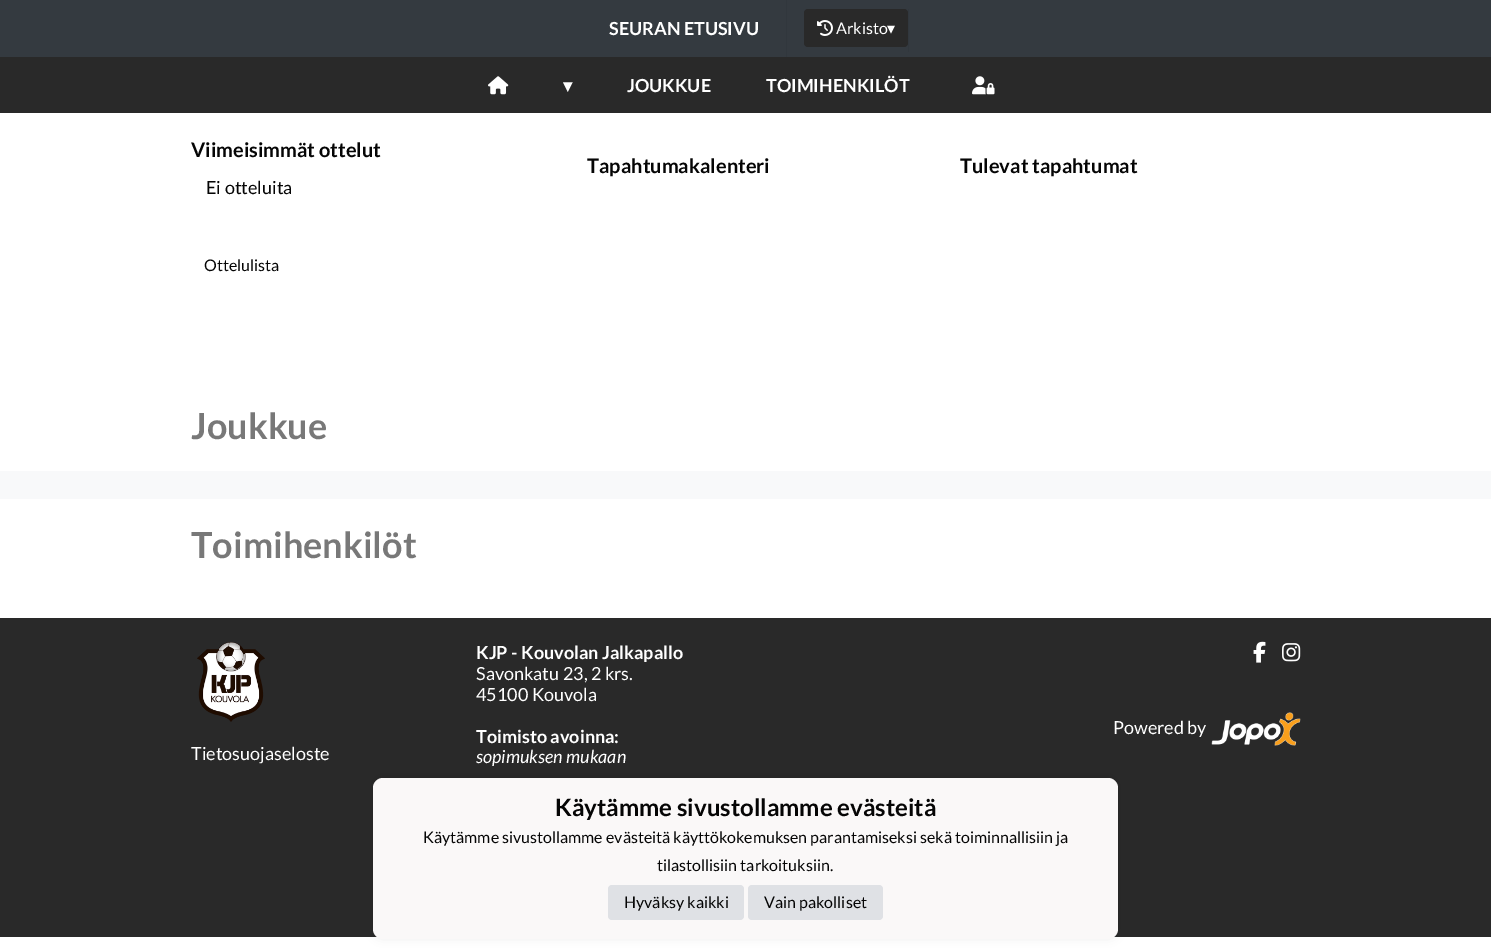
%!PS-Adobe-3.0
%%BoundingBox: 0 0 1491 948
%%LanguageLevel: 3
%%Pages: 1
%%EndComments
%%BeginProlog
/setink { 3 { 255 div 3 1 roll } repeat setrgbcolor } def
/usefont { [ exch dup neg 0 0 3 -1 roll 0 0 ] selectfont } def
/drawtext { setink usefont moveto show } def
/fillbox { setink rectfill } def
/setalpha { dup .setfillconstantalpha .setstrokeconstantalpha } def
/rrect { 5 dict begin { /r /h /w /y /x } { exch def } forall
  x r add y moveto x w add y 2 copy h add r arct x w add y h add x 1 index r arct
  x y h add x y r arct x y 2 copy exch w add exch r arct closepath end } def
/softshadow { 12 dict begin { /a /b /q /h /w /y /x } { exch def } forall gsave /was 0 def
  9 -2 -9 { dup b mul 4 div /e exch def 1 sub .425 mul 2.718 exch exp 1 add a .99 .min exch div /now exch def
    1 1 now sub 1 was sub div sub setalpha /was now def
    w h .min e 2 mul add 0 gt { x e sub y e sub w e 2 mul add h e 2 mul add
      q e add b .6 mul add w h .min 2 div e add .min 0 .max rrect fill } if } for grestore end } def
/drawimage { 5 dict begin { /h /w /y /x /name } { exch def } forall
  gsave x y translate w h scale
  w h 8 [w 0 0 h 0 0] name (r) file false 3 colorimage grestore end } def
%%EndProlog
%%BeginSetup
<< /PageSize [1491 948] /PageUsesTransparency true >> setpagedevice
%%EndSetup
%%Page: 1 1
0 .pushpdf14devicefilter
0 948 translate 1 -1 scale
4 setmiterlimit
0 0 1491 948 255 255 255 fillbox
0 0 1491 57 52 58 64 fillbox
786 0 1 57 49 55 61 fillbox
(SEURAN ETUSIVU) 609 35 /Lato-Bold 18 255 255 255 drawtext
908 9 1 43 49 55 61 fillbox
41 41 41 setink
804 9 104 38 4 rrect fill
(assets/img1.rgb) 817 20 16 16 drawimage
(Arkisto) 836 34 /Lato-Regular 16 255 255 255 drawtext
(▾) 887 34 /DejaVuSans-Regular 16 255 255 255 drawtext
0 57 1491 56 41 41 41 fillbox
(assets/img2.rgb) 488 76 21 19 drawimage
(▾) 563 92 /DejaVuSans-Bold 18 255 255 255 drawtext
(JOUKKUE) 627 92 /Lato-Bold 18 255 255 255 drawtext
(TOIMIHENKILÖT) 766 92 /Lato-Bold 18 255 255 255 drawtext
(assets/img3.rgb) 972 76 23 19 drawimage
(Viimeisimmät ottelut) 191 157 /Lato-Bold 20 5 5 5 drawtext
(Ei otteluita) 206 194 /Lato-Regular 18 5 5 5 drawtext
(Ottelulista) 204 271 /Lato-Regular 16 5 5 5 drawtext
(Tapahtumakalenteri) 587 173 /Lato-Bold 20 5 5 5 drawtext
(Tulevat tapahtumat) 960 173 /Lato-Bold 20 5 5 5 drawtext
(Joukkue) 191 439 /Lato-Bold 36 120 120 120 drawtext
0 471 1491 28 248 249 250 fillbox
(Toimihenkilöt) 191 558 /Lato-Bold 36 120 120 120 drawtext
0 618 1491 319 41 41 41 fillbox
(KJP - Kouvolan Jalkapallo) 476 659 /Lato-Bold 18 255 255 255 drawtext
(Savonkatu 23, 2 krs.) 476 680 /Lato-Regular 18 255 255 255 drawtext
(45100 Kouvola) 476 701 /Lato-Regular 18 255 255 255 drawtext
(Toimisto avoinna:) 476 743 /Lato-Bold 18 255 255 255 drawtext
(sopimuksen mukaan) 476 763 /Lato-Italic 18 255 255 255 drawtext
(assets/img4.rgb) 1253 641 13 22 drawimage
(assets/img5.rgb) 1282 643 19 19 drawimage
(Powered by) 1113 734 /Lato-Regular 18 255 255 255 drawtext
(assets/img6.rgb) 1211 712 90 34 drawimage
(assets/img7.rgb) 197 642 68 80 drawimage
(Tietosuojaseloste) 191 760 /Lato-Regular 18 255 255 255 drawtext
0 0 0 setink
373 776 745 161 10 5 0.1 softshadow
250 248 248 setink
373 778 745 161 10 rrect fill
(Käytämme sivustollamme evästeitä) 555 816 /Lato-Bold 24 5 5 5 drawtext
(Käytämme sivustollamme evästeitä käyttökokemuksen parantamiseksi sekä toiminnallisiin ja) 423 843 /Lato-Regular 16 5 5 5 drawtext
(tilastollisiin tarkoituksiin.) 657 871 /Lato-Regular 16 5 5 5 drawtext
223 225 229 setink
608 885 136 35 4 rrect fill
(Hyväksy kaikki) 624 908 /Lato-Regular 16 5 5 5 drawtext
223 225 229 setink
748 885 135 35 4 rrect fill
(Vain pakolliset) 764 908 /Lato-Regular 16 5 5 5 drawtext
.poppdf14devicefilter showpage
%%EOF
